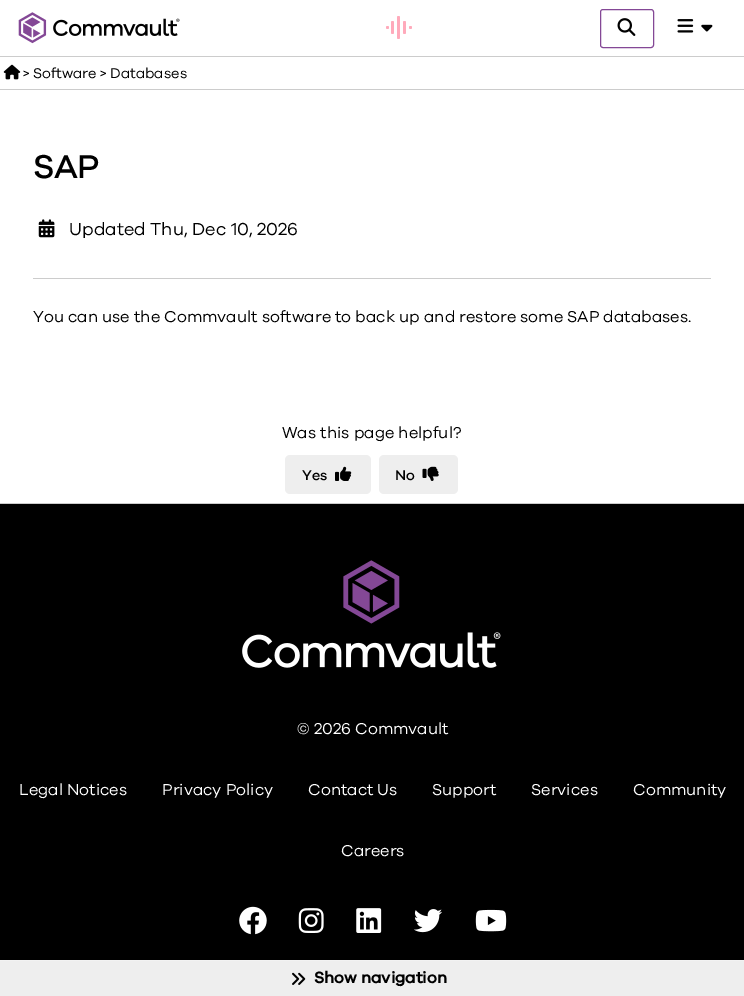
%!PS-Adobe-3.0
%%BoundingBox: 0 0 744 996
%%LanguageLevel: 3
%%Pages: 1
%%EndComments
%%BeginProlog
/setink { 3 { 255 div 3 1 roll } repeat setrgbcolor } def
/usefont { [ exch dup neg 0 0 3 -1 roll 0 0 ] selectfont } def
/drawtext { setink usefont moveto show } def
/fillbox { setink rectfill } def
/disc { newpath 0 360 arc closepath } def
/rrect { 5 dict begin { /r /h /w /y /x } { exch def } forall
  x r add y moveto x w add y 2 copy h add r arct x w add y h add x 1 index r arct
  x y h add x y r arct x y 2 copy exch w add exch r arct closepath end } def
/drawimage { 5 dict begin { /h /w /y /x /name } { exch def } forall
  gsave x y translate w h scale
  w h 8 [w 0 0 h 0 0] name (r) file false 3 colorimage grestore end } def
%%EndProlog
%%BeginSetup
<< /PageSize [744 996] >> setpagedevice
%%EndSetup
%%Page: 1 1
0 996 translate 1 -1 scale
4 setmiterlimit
0 0 744 996 255 255 255 fillbox
0 56 744 1 204 204 204 fillbox
(assets/img1.rgb) 18 12 162 32 drawimage
255 170 187 setink
387.5 27.5 1.5 disc fill
391 21 3 13 1.5 rrect fill
397 16 3 23 1.5 rrect fill
403 21 3 13 1.5 rrect fill
410.5 27.5 1.5 disc fill
132 72 150 setink
600.5 9.5 53 38 2.5 rrect stroke
(assets/img2.rgb) 617 18 19 18 drawimage
(assets/img3.rgb) 677 19 17 14 drawimage
(assets/img4.rgb) 701 24 12 8 drawimage
0 89 744 1 204 204 204 fillbox
(assets/img5.rgb) 3 64 18 16 drawimage
(>) 23 78 /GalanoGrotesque-Regular 14.5 0 0 0 drawtext
(Software) 33 78 /GalanoGrotesque-Regular 14.5 0 0 0 drawtext
(>) 100 78 /GalanoGrotesque-Regular 14.5 0 0 0 drawtext
(Databases) 110 78 /GalanoGrotesque-Regular 14.5 0 0 0 drawtext
/GalanoGrotesque-Medium 34 usefont
33 178 moveto -0.5 0 (SAP) ashow
(assets/img6.rgb) 38 219 17 19 drawimage
(Updated Thu, Dec 10, 2026) 69 235 /GalanoGrotesque-Regular 17.9 0 0 0 drawtext
33 278 678 1 204 204 204 fillbox
(You can use the Commvault software to back up and restore some SAP databases.) 33 322 /GalanoGrotesque-Regular 16.25 0 0 0 drawtext
(Was this page helpful?) 282 438 /GalanoGrotesque-Regular 16.25 0 0 0 drawtext
238 238 238 setink
285 455 86 39 5 rrect fill
(Yes) 302 480 /GalanoGrotesque-Medium 14.5 0 0 0 drawtext
(assets/img7.rgb) 335 466 17 15 drawimage
238 238 238 setink
379 455 79 39 5 rrect fill
(No) 395 480 /GalanoGrotesque-Medium 14.5 0 0 0 drawtext
(assets/img8.rgb) 422 466 17 15 drawimage
0 960 744 1 242 242 242 fillbox
0 961 744 35 238 238 238 fillbox
(assets/img9.rgb) 292 972 14 13 drawimage
(Show navigation) 314 983 /GalanoGrotesque-Bold 16.25 0 0 0 drawtext
0 504 744 456 0 0 0 fillbox
0 503 744 1 204 204 204 fillbox
(assets/img10.rgb) 242 560 259 108 drawimage
(© 2026 Commvault) 297 734 /GalanoGrotesque-Regular 16.25 255 255 255 drawtext
(Legal Notices) 19 795 /GalanoGrotesque-Regular 16.25 255 255 255 drawtext
(Privacy Policy) 162 795 /GalanoGrotesque-Regular 16.25 255 255 255 drawtext
(Contact Us) 308 795 /GalanoGrotesque-Regular 16.25 255 255 255 drawtext
(Support) 432 795 /GalanoGrotesque-Regular 16.25 255 255 255 drawtext
(Services) 531 795 /GalanoGrotesque-Regular 16.25 255 255 255 drawtext
(Community) 633 795 /GalanoGrotesque-Regular 16.25 255 255 255 drawtext
(Careers) 341 856 /GalanoGrotesque-Regular 16.25 255 255 255 drawtext
(assets/img11.rgb) 239 906 28 29 drawimage
(assets/img12.rgb) 298 908 26 25 drawimage
(assets/img13.rgb) 356 908 26 25 drawimage
(assets/img14.rgb) 414 909 28 24 drawimage
(assets/img15.rgb) 475 909 32 23 drawimage
showpage
%%EOF
